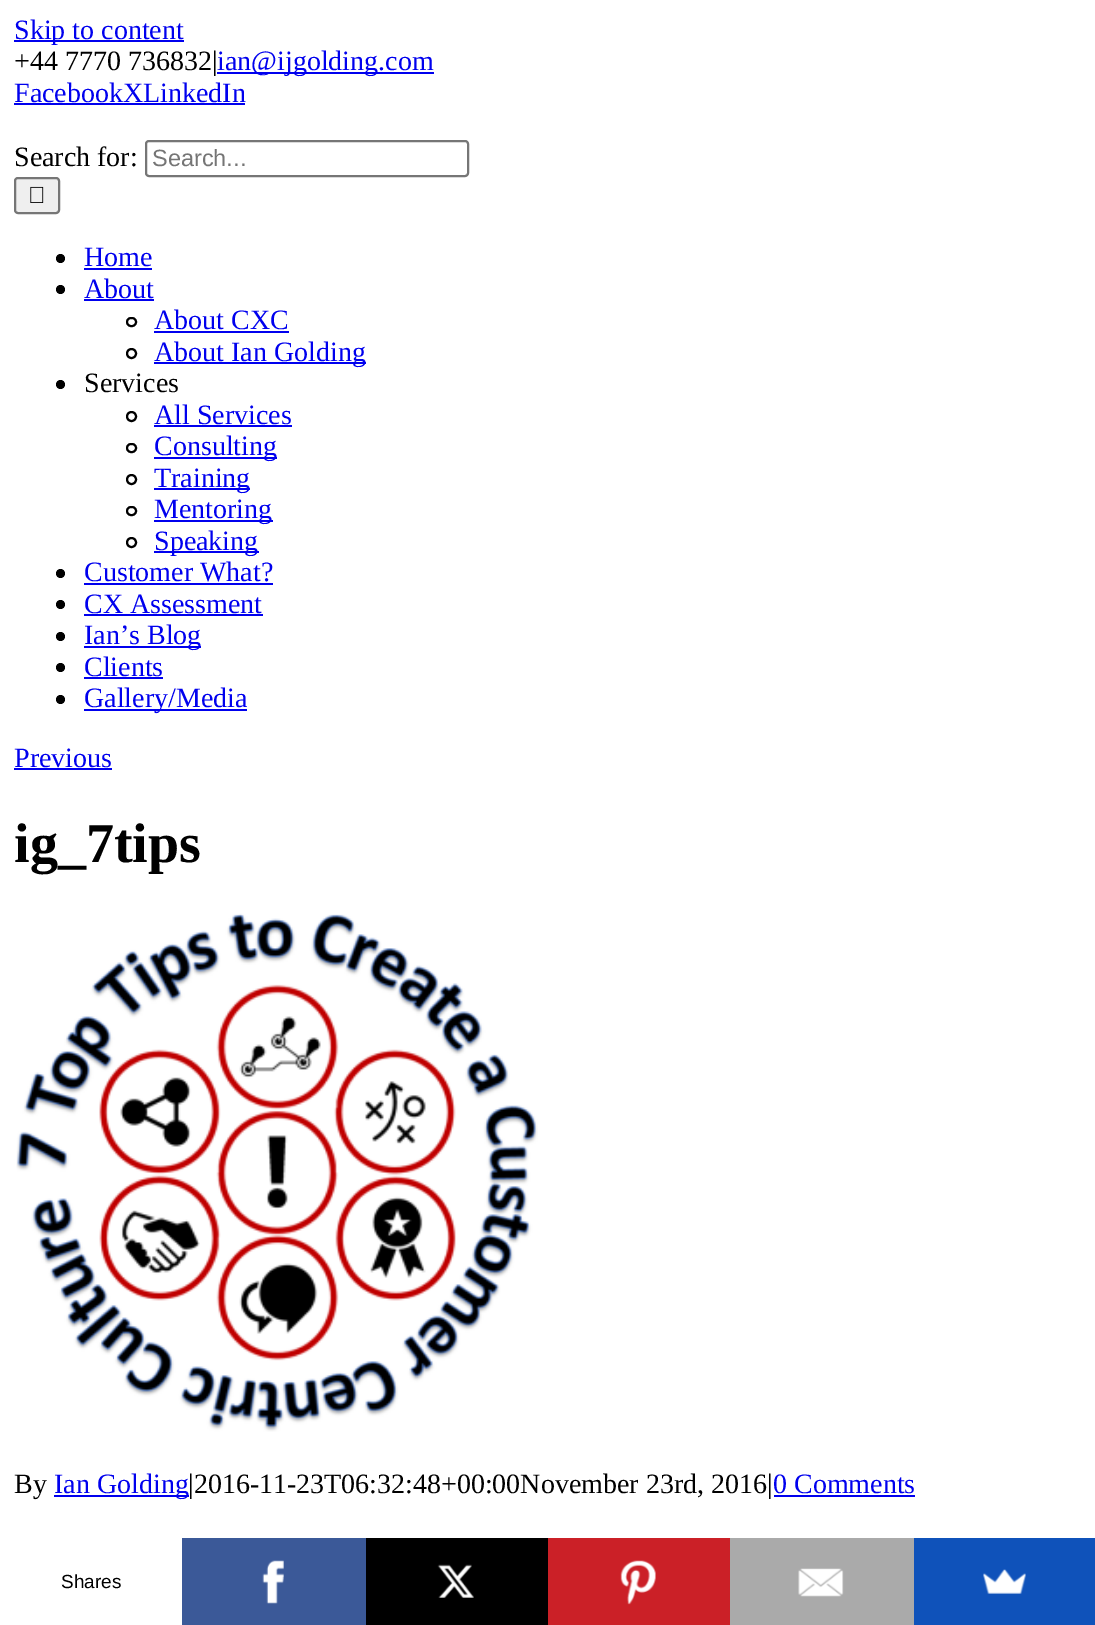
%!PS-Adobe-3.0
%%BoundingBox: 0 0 1095 1625
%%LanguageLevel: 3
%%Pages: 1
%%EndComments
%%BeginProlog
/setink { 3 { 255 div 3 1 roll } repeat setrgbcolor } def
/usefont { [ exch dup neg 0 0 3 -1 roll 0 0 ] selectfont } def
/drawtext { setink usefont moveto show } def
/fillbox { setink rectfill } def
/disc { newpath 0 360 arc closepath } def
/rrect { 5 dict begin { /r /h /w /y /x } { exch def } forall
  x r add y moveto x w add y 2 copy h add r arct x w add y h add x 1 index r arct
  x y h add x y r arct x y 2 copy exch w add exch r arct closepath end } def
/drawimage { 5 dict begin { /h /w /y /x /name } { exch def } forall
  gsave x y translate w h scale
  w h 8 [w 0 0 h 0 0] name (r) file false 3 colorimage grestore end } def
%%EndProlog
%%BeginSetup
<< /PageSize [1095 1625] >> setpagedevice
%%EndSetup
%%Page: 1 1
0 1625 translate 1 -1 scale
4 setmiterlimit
0 0 1095 1625 255 255 255 fillbox
14 40 170 2 0 0 238 fillbox
(Skip to content) 14 39 /LiberationSerif-Regular 28 0 0 238 drawtext
(+44 7770 736832|) 14 70 /LiberationSerif-Regular 28 0 0 0 drawtext
217 72 217 2 0 0 238 fillbox
(ian@ijgolding.com) 217 70 /LiberationSerif-Regular 28 0 0 238 drawtext
(FacebookXLinkedIn) 14 102 /LiberationSerif-Regular 28 0 0 238 drawtext
14 103 231 2 0 0 238 fillbox
(Search for:) 14 166 /LiberationSerif-Regular 28 0 0 0 drawtext
118 118 118 setink
2 setlinewidth
146 141 322 35 3 rrect stroke
(Search...) 152 166 /LiberationSans-Regular 23.5 117 117 117 drawtext
239 239 239 setink
15 178 44 35 3 rrect gsave fill grestore
118 118 118 setink
stroke
(assets/img1.rgb) 30 186 14 17 drawimage
0 0 0 setink
60.5 258.5 4.5 disc fill
(Home) 84 266 /LiberationSerif-Regular 28 0 0 238 drawtext
84 268 68 2 0 0 238 fillbox
0 0 0 setink
60.5 289.5 4.5 disc fill
(About) 84 298 /LiberationSerif-Regular 28 0 0 238 drawtext
84 299 70 2 0 0 238 fillbox
0 0 0 setink
127 318 9 8 4 rrect stroke
(About CXC) 154 329 /LiberationSerif-Regular 28 0 0 238 drawtext
154 331 135 2 0 0 238 fillbox
0 0 0 setink
131.5 353.5 4.5 disc stroke
154 362 212 2 0 0 238 fillbox
(About Ian Golding) 154 361 /LiberationSerif-Regular 28 0 0 238 drawtext
0 0 0 setink
60.5 384.5 4.5 disc fill
(Services) 84 392 /LiberationSerif-Regular 28 0 0 0 drawtext
131.5 416.5 4.5 disc stroke
(All Services) 154 424 /LiberationSerif-Regular 28 0 0 238 drawtext
154 425 138 2 0 0 238 fillbox
0 0 0 setink
127 444 9 8 4 rrect stroke
154 457 123 2 0 0 238 fillbox
(Consulting) 154 455 /LiberationSerif-Regular 28 0 0 238 drawtext
0 0 0 setink
131.5 479.5 4.5 disc stroke
154 488 96 2 0 0 238 fillbox
(Training) 154 487 /LiberationSerif-Regular 28 0 0 238 drawtext
0 0 0 setink
127 507 9 8 4 rrect stroke
154 520 119 2 0 0 238 fillbox
(Mentoring) 154 518 /LiberationSerif-Regular 28 0 0 238 drawtext
0 0 0 setink
131.5 542.5 4.5 disc stroke
154 551 105 2 0 0 238 fillbox
(Speaking) 154 550 /LiberationSerif-Regular 28 0 0 238 drawtext
0 0 0 setink
60.5 573.5 4.5 disc fill
(Customer What?) 84 581 /LiberationSerif-Regular 28 0 0 238 drawtext
84 583 189 2 0 0 238 fillbox
0 0 0 setink
60.5 604.5 4.5 disc fill
(CX Assessment) 84 613 /LiberationSerif-Regular 28 0 0 238 drawtext
84 614 179 2 0 0 238 fillbox
0 0 0 setink
60.5 636.5 4.5 disc fill
84 646 117 2 0 0 238 fillbox
(Ian’s Blog) 84 644 /LiberationSerif-Regular 28 0 0 238 drawtext
0 0 0 setink
60.5 667.5 4.5 disc fill
(Clients) 84 676 /LiberationSerif-Regular 28 0 0 238 drawtext
84 677 79 2 0 0 238 fillbox
0 0 0 setink
60.5 699.5 4.5 disc fill
84 709 163 2 0 0 238 fillbox
(Gallery/Media) 84 707 /LiberationSerif-Regular 28 0 0 238 drawtext
(Previous) 14 767 /LiberationSerif-Regular 28 0 0 238 drawtext
14 768 98 2 0 0 238 fillbox
(ig_7tips) 14 862 /LiberationSerif-Bold 56 0 0 0 drawtext
(assets/img2.rgb) 16 913 522 519 drawimage
(By) 14 1493 /LiberationSerif-Regular 28 0 0 0 drawtext
54 1495 135 2 0 0 238 fillbox
(Ian Golding) 54 1493 /LiberationSerif-Regular 28 0 0 238 drawtext
(|2016-11-23T06:32:48+00:00November 23rd, 2016|) 188 1493 /LiberationSerif-Regular 28 0 0 0 drawtext
(0 Comments) 773 1493 /LiberationSerif-Regular 28 0 0 238 drawtext
774 1495 141 2 0 0 238 fillbox
(Shares) 61 1588 /LiberationSans-Regular 19 0 0 0 drawtext
182 1538 184 87 59 89 152 fillbox
(assets/img3.rgb) 262 1560 22 44 drawimage
366 1538 182 87 0 0 0 fillbox
(assets/img4.rgb) 437 1564 37 34 drawimage
548 1538 182 87 203 32 39 fillbox
(assets/img5.rgb) 620 1560 36 45 drawimage
730 1538 184 87 170 170 170 fillbox
(assets/img6.rgb) 798 1568 46 29 drawimage
914 1538 181 87 15 82 186 fillbox
(assets/img7.rgb) 983 1569 43 25 drawimage
showpage
%%EOF
